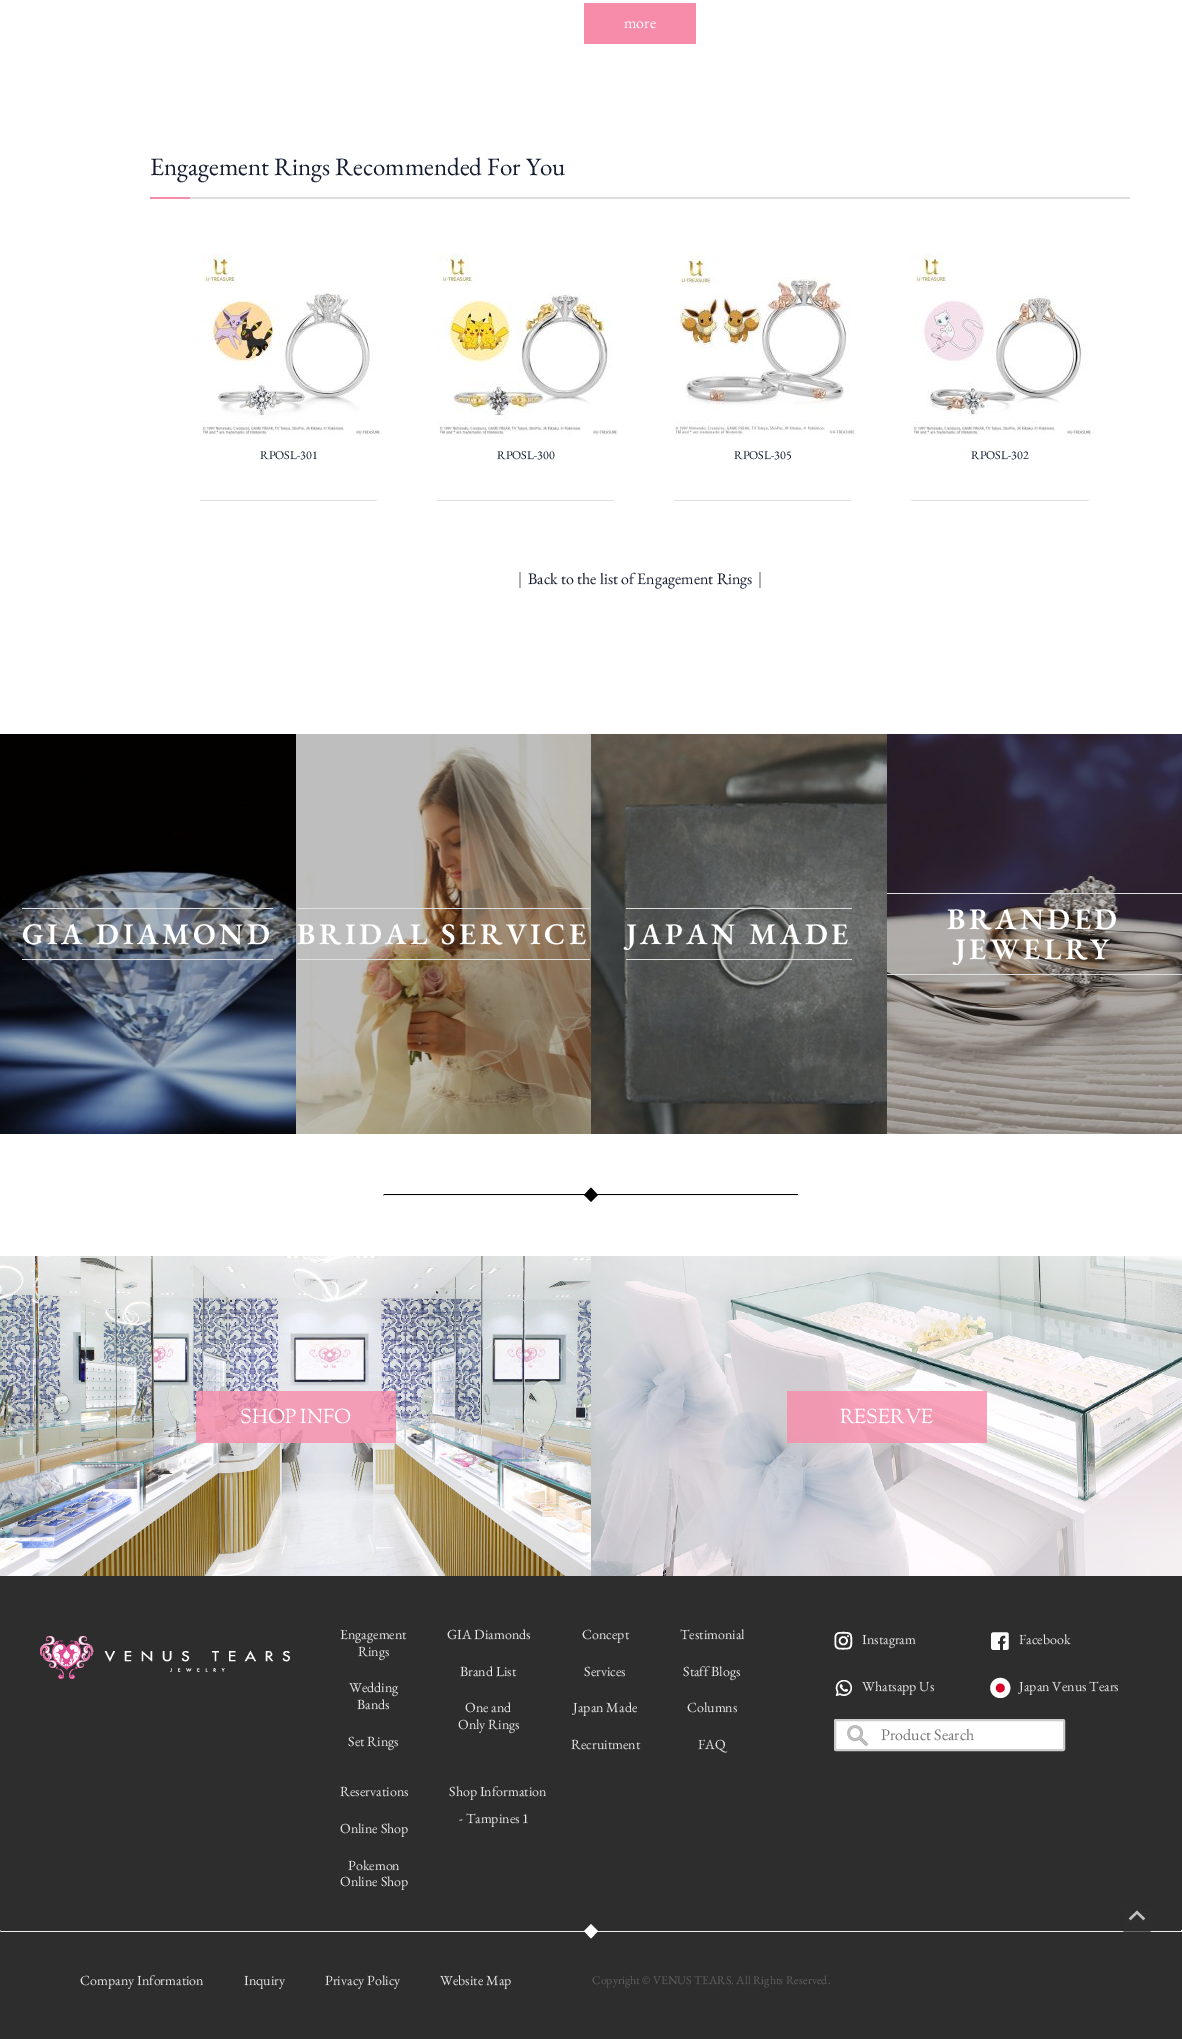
%!PS-Adobe-3.0
%%BoundingBox: 0 0 1182 2039
%%LanguageLevel: 3
%%Pages: 1
%%EndComments
%%BeginProlog
/setink { 3 { 255 div 3 1 roll } repeat setrgbcolor } def
/usefont { [ exch dup neg 0 0 3 -1 roll 0 0 ] selectfont } def
/drawtext { setink usefont moveto show } def
/fillbox { setink rectfill } def
/setalpha { dup .setfillconstantalpha .setstrokeconstantalpha } def
/rrect { 5 dict begin { /r /h /w /y /x } { exch def } forall
  x r add y moveto x w add y 2 copy h add r arct x w add y h add x 1 index r arct
  x y h add x y r arct x y 2 copy exch w add exch r arct closepath end } def
/drawimage { 5 dict begin { /h /w /y /x /name } { exch def } forall
  gsave x y translate w h scale
  w h 8 [w 0 0 h 0 0] name (r) file false 3 colorimage grestore end } def
%%EndProlog
%%BeginSetup
<< /PageSize [1182 2039] /PageUsesTransparency true >> setpagedevice
%%EndSetup
%%Page: 1 1
0 .pushpdf14devicefilter
0 2039 translate 1 -1 scale
4 setmiterlimit
0 0 1182 2039 255 255 255 fillbox
584 3 112 41 247 139 170 fillbox
(more) 624 28 /EBGaramond-Regular 16 255 255 255 drawtext
(assets/img1.rgb) 150 197 980 2 drawimage
(Engagement Rings Recommended For You) 150 175 /EBGaramond-Regular 25 19 27 46 drawtext
200 500 177 1 225 225 225 fillbox
(assets/img2.rgb) 200 253 182 182 drawimage
(RPOSL-301) 260 459 /EBGaramond-Regular 12 19 27 46 drawtext
437 500 177 1 225 225 225 fillbox
(assets/img3.rgb) 437 253 182 182 drawimage
(RPOSL-300) 497 459 /EBGaramond-Regular 12 19 27 46 drawtext
674 500 177 1 225 225 225 fillbox
(assets/img4.rgb) 674 253 182 182 drawimage
(RPOSL-305) 734 459 /EBGaramond-Regular 12 19 27 46 drawtext
911 500 178 1 225 225 225 fillbox
(assets/img5.rgb) 911 253 182 182 drawimage
(RPOSL-302) 971 459 /EBGaramond-Regular 12 19 27 46 drawtext
(｜) 512 584 /WenQuanYiZenHei-Medium 16 105 105 105 drawtext
(Back to the list of Engagement Rings) 528 584 /EBGaramond-Regular 16 19 27 46 drawtext
(｜) 752 584 /WenQuanYiZenHei-Medium 16 105 105 105 drawtext
(assets/img6.rgb) 0 734 296 400 drawimage
22 908 251 1 223 224 225 fillbox
22 959 251 1 223 224 225 fillbox
/EBGaramond-SemiBold 30 usefont
255 255 255 setink
22 944 moveto 3.5 0 (GIA DIAMOND) ashow
(assets/img7.rgb) 296 734 295 400 drawimage
297 908 293 1 223 224 225 fillbox
297 959 293 1 223 224 225 fillbox
255 255 255 setink
297 944 moveto 3.5 0 (BRIDAL SERVICE) ashow
(assets/img8.rgb) 591 734 296 400 drawimage
626 908 226 1 223 224 225 fillbox
626 959 226 1 223 224 225 fillbox
255 255 255 setink
626 944 moveto 3.5 0 (JAPAN MADE) ashow
(assets/img9.rgb) 887 734 295 400 drawimage
887 893 295 1 223 224 225 fillbox
887 974 295 1 223 224 225 fillbox
255 255 255 setink
947 929 moveto 3.5 0 (BRANDED) ashow
955 959 moveto 3.5 0 (JEWELRY) ashow
383 1194 416 1 0 0 0 fillbox
798 1194 1 2 238 238 238 fillbox
383 1195 416 1 238 238 238 fillbox
383 1194 1 2 159 159 159 fillbox
0 0 0 setink
584 1195 moveto 591 1187.5 lineto 598 1195 lineto 591 1202 lineto closepath fill
(assets/img10.rgb) 0 1256 591 320 drawimage
0.8 setalpha
196 1391 200 52 248 139 170 fillbox
1 setalpha
(SHOP INFO) 240 1423 /SortsMillGoudy-Regular 20 255 255 255 drawtext
(assets/img11.rgb) 591 1256 591 320 drawimage
0.8 setalpha
787 1391 200 52 248 139 170 fillbox
1 setalpha
(RESERVE) 840 1423 /SortsMillGoudy-Regular 20 255 255 255 drawtext
0 1576 1182 463 45 45 45 fillbox
(assets/img12.rgb) 40 1636 250 43 drawimage
(Engagement) 340 1639 /EBGaramond-Regular 14 230 230 230 drawtext
(Rings) 358 1656 /EBGaramond-Regular 14 230 230 230 drawtext
(Wedding) 349 1692 /EBGaramond-Regular 14 230 230 230 drawtext
(Bands) 357 1709 /EBGaramond-Regular 14 230 230 230 drawtext
(Set Rings) 348 1746 /EBGaramond-Regular 14 230 230 230 drawtext
(GIA Diamonds) 447 1639 /EBGaramond-Regular 14 230 230 230 drawtext
(Brand List) 460 1676 /EBGaramond-Regular 14 230 230 230 drawtext
(One and) 465 1712 /EBGaramond-Regular 14 230 230 230 drawtext
(Only Rings) 458 1729 /EBGaramond-Regular 14 230 230 230 drawtext
(Concept) 582 1639 /EBGaramond-Regular 14 230 230 230 drawtext
(Services) 584 1676 /EBGaramond-Regular 14 230 230 230 drawtext
(Japan Made) 573 1712 /EBGaramond-Regular 14 230 230 230 drawtext
(Recruitment) 571 1749 /EBGaramond-Regular 14 230 230 230 drawtext
(Testimonial) 680 1639 /EBGaramond-Regular 14 230 230 230 drawtext
(Staff Blogs) 683 1676 /EBGaramond-Regular 14 230 230 230 drawtext
(Columns) 687 1712 /EBGaramond-Regular 14 230 230 230 drawtext
(FAQ) 698 1749 /EBGaramond-Regular 14 230 230 230 drawtext
(Reservations) 340 1796 /EBGaramond-Regular 14 230 230 230 drawtext
(Online Shop) 340 1833 /EBGaramond-Regular 14 230 230 230 drawtext
(Pokemon) 348 1870 /EBGaramond-Regular 14 230 230 230 drawtext
(Online Shop) 340 1886 /EBGaramond-Regular 14 230 230 230 drawtext
(Shop Information) 449 1796 /EBGaramond-Regular 14 230 230 230 drawtext
(- Tampines 1) 459 1823 /EBGaramond-Regular 14 230 230 230 drawtext
(assets/img13.rgb) 834 1631 19 19 drawimage
(Instagram) 862 1644 /EBGaramond-Regular 14 230 230 230 drawtext
(assets/img14.rgb) 835 1680 17 16 drawimage
(Whatsapp Us) 862 1691 /EBGaramond-Regular 14 230 230 230 drawtext
255 255 255 setink
835 1720 229 30 1 rrect gsave fill grestore
204 204 204 setink
2 setlinewidth
stroke
(assets/img15.rgb) 847 1725 21 21 drawimage
(Product Search) 881 1740 /EBGaramond-Regular 16 117 117 117 drawtext
(assets/img16.rgb) 991 1632 18 18 drawimage
(Facebook) 1019 1644 /EBGaramond-Regular 14 230 230 230 drawtext
(assets/img17.rgb) 990 1677 21 21 drawimage
(Japan Venus Tears) 1019 1691 /EBGaramond-Regular 14 230 230 230 drawtext
1181 1930 1 2 238 238 238 fillbox
0 1931 1182 1 238 238 238 fillbox
0 1930 1 2 159 159 159 fillbox
255 255 255 setink
584 1931 moveto 591 1924 lineto 598 1931 lineto 591 1938.5 lineto closepath fill
(Company Information) 80 1985 /EBGaramond-Regular 14 230 230 230 drawtext
(Inquiry) 244 1985 /EBGaramond-Regular 14 230 230 230 drawtext
(Privacy Policy) 325 1985 /EBGaramond-Regular 14 230 230 230 drawtext
(Website Map) 440 1985 /EBGaramond-Regular 14 230 230 230 drawtext
(Copyright © VENUS TEARS. All Rights Reserved.) 592 1984 /EBGaramond-Regular 12 93 93 93 drawtext
(assets/img18.rgb) 1122 1910 30 22 drawimage
.poppdf14devicefilter showpage
%%EOF
